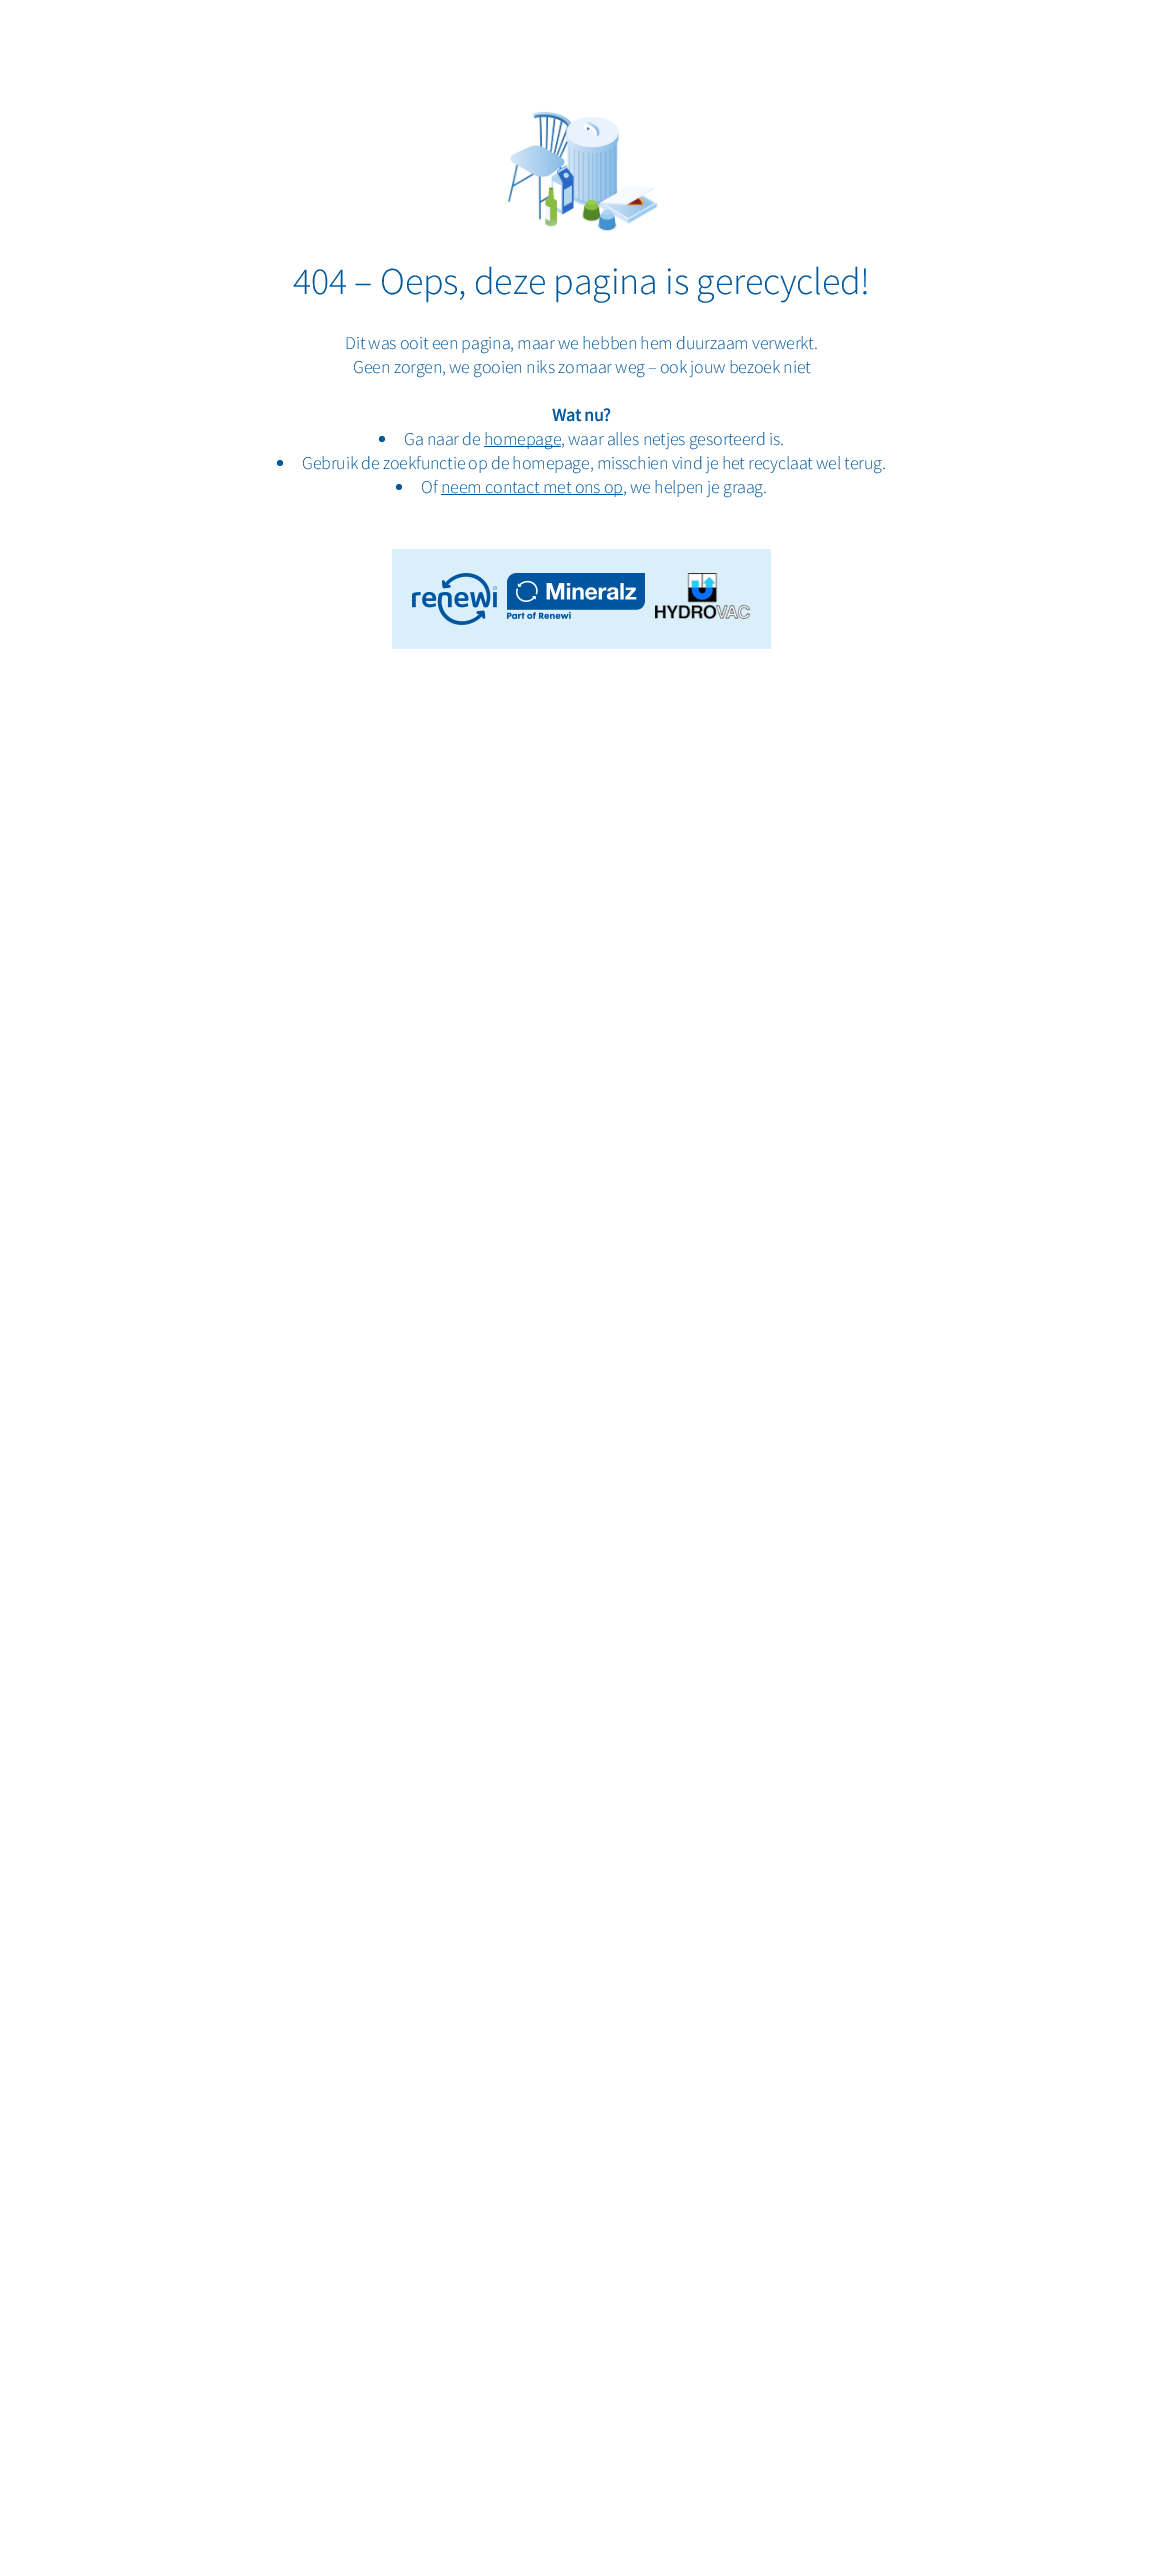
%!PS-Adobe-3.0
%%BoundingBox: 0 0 1163 2568
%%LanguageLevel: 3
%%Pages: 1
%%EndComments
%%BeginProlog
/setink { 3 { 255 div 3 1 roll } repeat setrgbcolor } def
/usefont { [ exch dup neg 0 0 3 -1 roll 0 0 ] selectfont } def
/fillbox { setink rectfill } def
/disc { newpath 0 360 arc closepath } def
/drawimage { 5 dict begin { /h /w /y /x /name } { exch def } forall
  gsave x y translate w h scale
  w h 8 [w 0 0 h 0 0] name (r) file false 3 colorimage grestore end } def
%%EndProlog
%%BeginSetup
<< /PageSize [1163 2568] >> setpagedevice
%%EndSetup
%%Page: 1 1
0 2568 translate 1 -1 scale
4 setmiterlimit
0 0 1163 2568 255 255 255 fillbox
(assets/img1.rgb) 507 111 151 121 drawimage
/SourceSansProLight-Light 38 usefont
1 87 155 setink
293 294 moveto -0.18 0 (404 – Oeps, deze pagina is gerecycled!) ashow
/SourceSansProLight-Light 18 usefont
345 349 moveto -0.18 0 (Dit was ooit een pagina, maar we hebben hem duurzaam verwerkt.) ashow
353 373 moveto -0.18 0 (Geen zorgen, we gooien niks zomaar weg – ook jouw bezoek niet) ashow
/SourceSansPro-Bold 18 usefont
552 421 moveto -0.18 0 (Wat nu?) ashow
382 439 3 disc fill
/SourceSansProLight-Light 18 usefont
404 445 moveto -0.18 0 (Ga naar de) ashow
484 446 77 1 1 87 155 fillbox
484 445 moveto -0.18 0 (homepage, waar alles netjes gesorteerd is.) ashow
280 463 3 disc fill
302 469 moveto -0.18 0 (Gebruik de zoekfunctie op de homepage, misschien vind je het recyclaat wel terug.) ashow
399 487 3 disc fill
421 493 moveto -0.18 0 (Of) ashow
441 494 182 1 1 87 155 fillbox
441 493 moveto -0.18 0 (neem contact met ons op, we helpen je graag.) ashow
392 549 379 100 219 239 250 fillbox
(assets/img2.rgb) 412 573 85 52 drawimage
(assets/img3.rgb) 507 573 138 46 drawimage
(assets/img4.rgb) 655 573 96 46 drawimage
showpage
%%EOF
